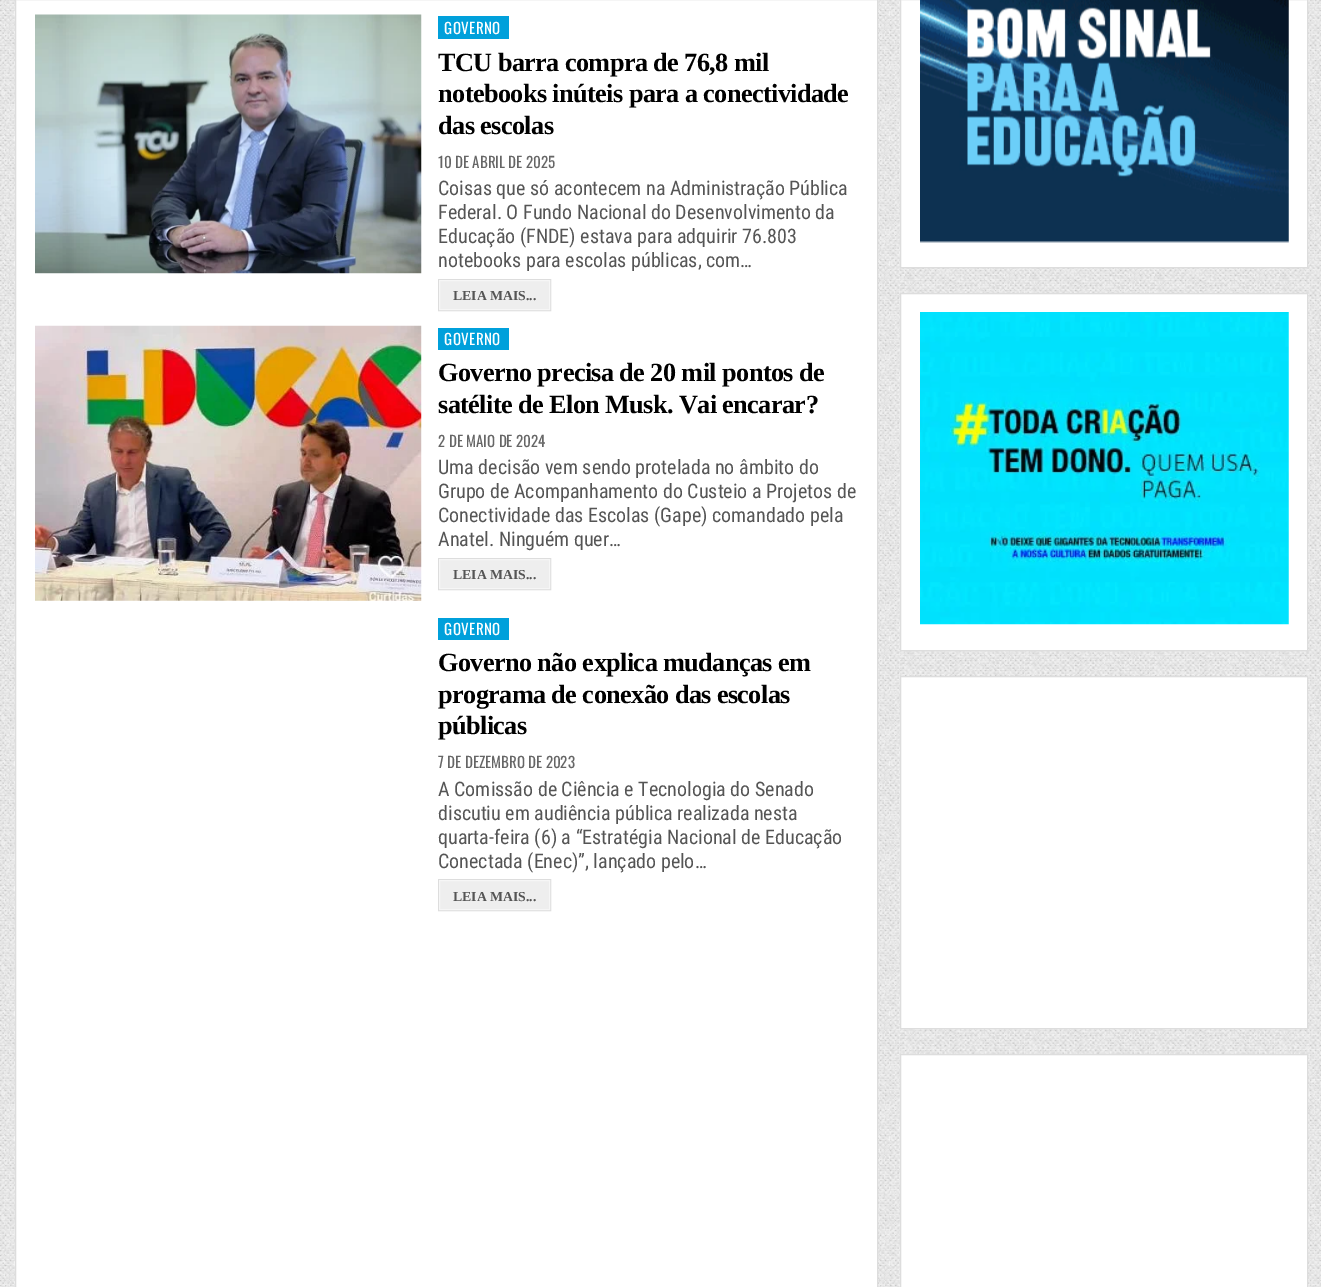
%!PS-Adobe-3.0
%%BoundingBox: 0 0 1321 1287
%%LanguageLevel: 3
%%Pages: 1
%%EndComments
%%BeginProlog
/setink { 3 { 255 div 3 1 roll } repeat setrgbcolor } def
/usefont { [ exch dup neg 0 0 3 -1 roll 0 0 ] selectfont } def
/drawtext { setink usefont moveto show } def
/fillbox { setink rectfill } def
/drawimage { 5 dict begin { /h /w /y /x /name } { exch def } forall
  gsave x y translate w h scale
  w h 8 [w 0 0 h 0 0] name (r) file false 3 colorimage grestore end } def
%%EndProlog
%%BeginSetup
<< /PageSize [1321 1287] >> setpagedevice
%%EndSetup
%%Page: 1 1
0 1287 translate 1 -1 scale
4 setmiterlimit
0 0 1321 1287 255 255 255 fillbox
(assets/img1.rgb) 0 0 1321 1287 drawimage
15.5 -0.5 moveto 877.5 -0.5 lineto 877.5 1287.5 lineto 15.5 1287.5 lineto closepath gsave fill grestore
221 221 221 setink
stroke
(assets/img2.rgb) 35 14 387 260 drawimage
438 16 71 23 0 160 219 fillbox
/Oswald-Regular 15 usefont
255 255 255 setink
444 34 moveto 0.5 0 (GOVERNO) ashow
/LiberationSerif-Bold 26.25 usefont
0 0 0 setink
438 71 moveto -0.6 0 (TCU barra compra de 76,8 mil) ashow
438 102 moveto -0.6 0 (notebooks inúteis para a conectividade) ashow
438 134 moveto -0.6 0 (das escolas) ashow
(10 DE ABRIL DE 2025) 438 168 /Oswald-Regular 15 102 102 102 drawtext
(Coisas que só acontecem na Administração Pública) 438 195 /RobotoCondensed-Regular 20 85 85 85 drawtext
(Federal. O Fundo Nacional do Desenvolvimento da) 438 219 /RobotoCondensed-Regular 20 85 85 85 drawtext
(Educação \(FNDE\) estava para adquirir 76.803) 438 243 /RobotoCondensed-Regular 20 85 85 85 drawtext
(notebooks para escolas públicas, com…) 438 267 /RobotoCondensed-Regular 20 85 85 85 drawtext
440 281 109 28 238 238 238 fillbox
221 221 221 setink
438.5 279.5 112 31 rectstroke
246 246 246 setink
439.5 280.5 110 29 rectstroke
(LEIA MAIS...) 453 300 /LiberationSerif-Bold 13.75 85 85 85 drawtext
(assets/img3.rgb) 35 325 387 276 drawimage
438 328 71 22 0 160 219 fillbox
/Oswald-Regular 15 usefont
255 255 255 setink
444 345 moveto 0.5 0 (GOVERNO) ashow
/LiberationSerif-Bold 26.25 usefont
0 0 0 setink
438 381 moveto -0.6 0 (Governo precisa de 20 mil pontos de) ashow
438 413 moveto -0.6 0 (satélite de Elon Musk. Vai encarar?) ashow
(2 DE MAIO DE 2024) 438 447 /Oswald-Regular 15 102 102 102 drawtext
(Uma decisão vem sendo protelada no âmbito do) 438 474 /RobotoCondensed-Regular 20 85 85 85 drawtext
(Grupo de Acompanhamento do Custeio a Projetos de) 438 498 /RobotoCondensed-Regular 20 85 85 85 drawtext
(Conectividade das Escolas \(Gape\) comandado pela) 438 522 /RobotoCondensed-Regular 20 85 85 85 drawtext
(Anatel. Ninguém quer…) 438 546 /RobotoCondensed-Regular 20 85 85 85 drawtext
440 560 109 28 238 238 238 fillbox
221 221 221 setink
438.5 558.5 112 31 rectstroke
246 246 246 setink
439.5 559.5 110 29 rectstroke
(LEIA MAIS...) 453 579 /LiberationSerif-Bold 13.75 85 85 85 drawtext
438 618 71 22 0 160 219 fillbox
/Oswald-Regular 15 usefont
255 255 255 setink
444 635 moveto 0.5 0 (GOVERNO) ashow
/LiberationSerif-Bold 26.25 usefont
0 0 0 setink
438 671 moveto -0.6 0 (Governo não explica mudanças em) ashow
438 703 moveto -0.6 0 (programa de conexão das escolas) ashow
438 734 moveto -0.6 0 (públicas) ashow
(7 DE DEZEMBRO DE 2023) 438 768 /Oswald-Regular 15 102 102 102 drawtext
(A Comissão de Ciência e Tecnologia do Senado) 438 796 /RobotoCondensed-Regular 20 85 85 85 drawtext
(discutiu em audiência pública realizada nesta) 438 820 /RobotoCondensed-Regular 20 85 85 85 drawtext
(quarta-feira \(6\) a “Estratégia Nacional de Educação) 438 844 /RobotoCondensed-Regular 20 85 85 85 drawtext
(Conectada \(Enec\)”, lançado pelo…) 438 868 /RobotoCondensed-Regular 20 85 85 85 drawtext
440 881 109 28 238 238 238 fillbox
221 221 221 setink
438.5 879.5 112 31 rectstroke
246 246 246 setink
439.5 880.5 110 29 rectstroke
(LEIA MAIS...) 453 901 /LiberationSerif-Bold 13.75 85 85 85 drawtext
255 255 255 setink
900.5 -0.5 moveto 1307.5 -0.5 lineto 1307.5 267.5 lineto 900.5 267.5 lineto closepath gsave fill grestore
221 221 221 setink
stroke
(assets/img4.rgb) 920 0 369 243 drawimage
255 255 255 setink
900.5 293.5 moveto 1307.5 293.5 lineto 1307.5 650.5 lineto 900.5 650.5 lineto closepath gsave fill grestore
221 221 221 setink
stroke
(assets/img5.rgb) 920 312 369 313 drawimage
255 255 255 setink
900.5 676.5 moveto 1307.5 676.5 lineto 1307.5 1028.5 lineto 900.5 1028.5 lineto closepath gsave fill grestore
221 221 221 setink
stroke
255 255 255 setink
900.5 1054.5 moveto 1307.5 1054.5 lineto 1307.5 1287.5 lineto 900.5 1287.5 lineto closepath gsave fill grestore
221 221 221 setink
stroke
showpage
%%EOF
